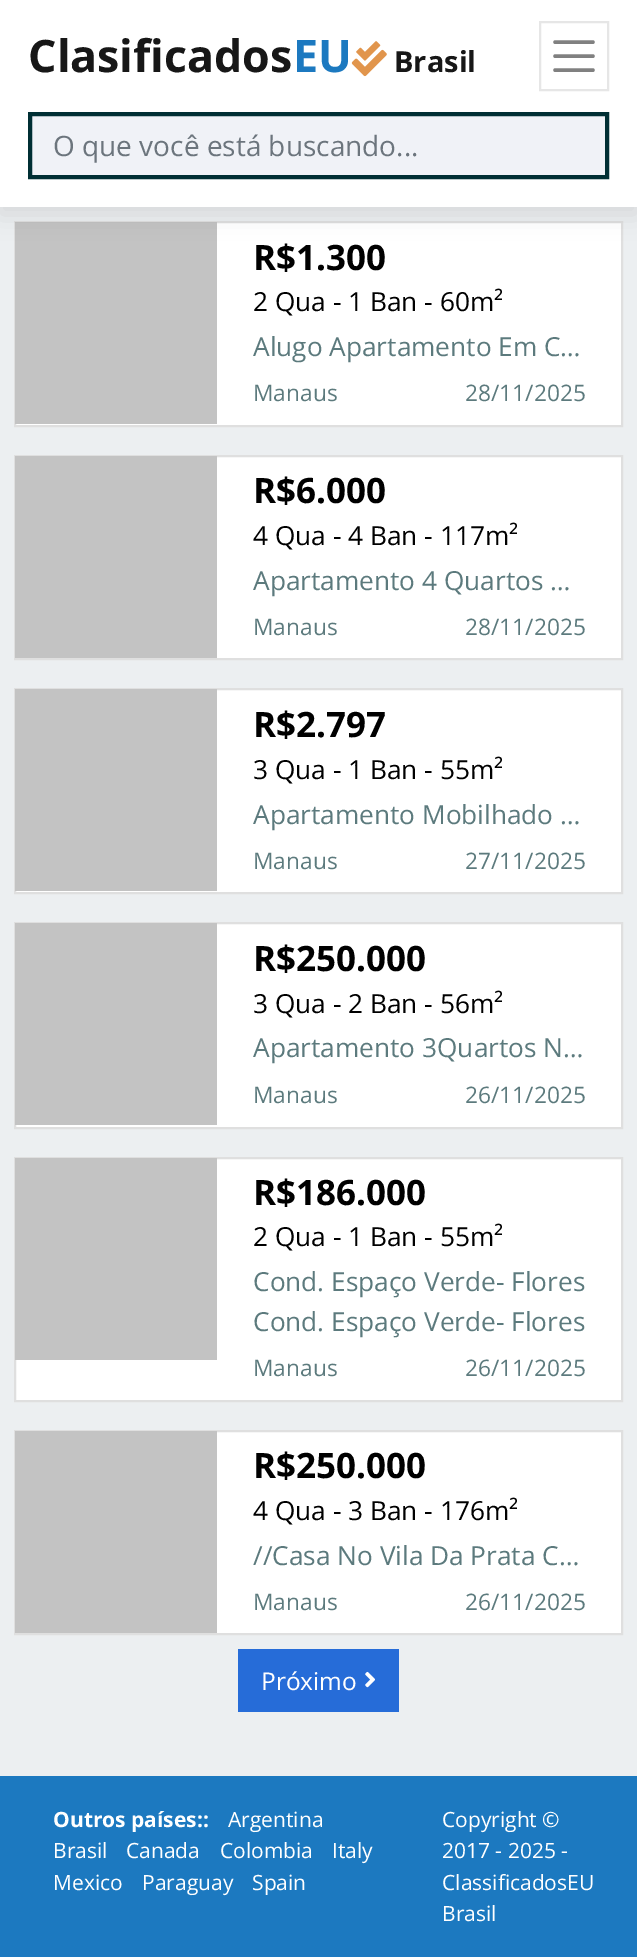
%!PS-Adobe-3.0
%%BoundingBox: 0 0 637 1957
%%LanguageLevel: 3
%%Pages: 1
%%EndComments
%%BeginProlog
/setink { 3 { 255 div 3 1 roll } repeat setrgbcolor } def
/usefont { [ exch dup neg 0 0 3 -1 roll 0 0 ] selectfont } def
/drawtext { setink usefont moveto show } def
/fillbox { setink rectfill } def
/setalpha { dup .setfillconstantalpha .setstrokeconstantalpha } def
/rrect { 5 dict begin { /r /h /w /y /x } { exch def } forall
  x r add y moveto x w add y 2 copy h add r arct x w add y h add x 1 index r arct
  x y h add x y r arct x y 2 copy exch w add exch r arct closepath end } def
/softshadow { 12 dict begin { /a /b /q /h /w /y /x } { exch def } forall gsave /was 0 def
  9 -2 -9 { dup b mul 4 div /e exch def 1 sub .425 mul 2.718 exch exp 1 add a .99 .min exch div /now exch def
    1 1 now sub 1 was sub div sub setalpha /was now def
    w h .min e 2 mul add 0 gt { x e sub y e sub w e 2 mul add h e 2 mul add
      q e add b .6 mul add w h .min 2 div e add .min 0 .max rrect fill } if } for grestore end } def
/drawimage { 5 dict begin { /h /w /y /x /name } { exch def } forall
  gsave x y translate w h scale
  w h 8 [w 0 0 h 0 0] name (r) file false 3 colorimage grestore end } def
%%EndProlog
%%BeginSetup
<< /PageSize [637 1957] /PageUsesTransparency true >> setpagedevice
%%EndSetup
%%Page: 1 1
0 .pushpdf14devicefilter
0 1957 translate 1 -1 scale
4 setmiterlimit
0 0 637 1957 236 239 241 fillbox
255 255 255 setink
15 222 moveto 622 222 lineto 622 426 lineto 15 426 lineto closepath gsave fill grestore
223 223 223 setink
2 setlinewidth
stroke
15 222 202 202 195 195 195 fillbox
0 0 0 setink
0 7 637 207 0 12 0.1 softshadow
0 0 637 207 255 255 255 fillbox
(Clasificados) 28 72 /OpenSans-Bold 44.75 23 23 23 drawtext
(EU) 293 72 /OpenSans-Bold 44.75 28 121 192 drawtext
(assets/img1.rgb) 351 41 36 36 drawimage
(Brasil) 394 72 /OpenSans-Bold 29 23 23 23 drawtext
230 230 230 setink
540 22 68 68 rectstroke
128 128 128 setink
3.5 setlinewidth
1 setlinecap
555 42 moveto 593 42 lineto 555 56 moveto 593 56 lineto 555 70 moveto 593 70 lineto stroke
240 242 247 setink
30 114 moveto 607 114 lineto 607 177 lineto 30 177 lineto closepath gsave fill grestore
0 47 52 setink
4 setlinewidth
0 setlinecap
stroke
(O que você está buscando...) 53 156 /OpenSans-Regular 28 108 117 125 drawtext
(R$1.300) 253 270 /OpenSans-Bold 35 0 0 0 drawtext
(2 Qua - 1 Ban - 60m²) 253 311 /OpenSans-Regular 26.25 0 0 0 drawtext
(Alugo Apartamento Em C…) 253 356 /OpenSans-Regular 26.25 92 122 125 drawtext
(Manaus) 253 401 /OpenSans-Regular 22.75 92 122 125 drawtext
(28/11/2025) 465 401 /OpenSans-Regular 22.75 92 122 125 drawtext
217 457 404 201 255 255 255 fillbox
223 223 223 setink
2 setlinewidth
15 456 607 203 rectstroke
15 456 202 202 195 195 195 fillbox
(R$6.000) 253 503 /OpenSans-Bold 35 0 0 0 drawtext
(4 Qua - 4 Ban - 117m²) 253 545 /OpenSans-Regular 26.25 0 0 0 drawtext
(Apartamento 4 Quartos …) 253 590 /OpenSans-Regular 26.25 92 122 125 drawtext
(Manaus) 253 635 /OpenSans-Regular 22.75 92 122 125 drawtext
(28/11/2025) 465 635 /OpenSans-Regular 22.75 92 122 125 drawtext
255 255 255 setink
15 689 moveto 622 689 lineto 622 893 lineto 15 893 lineto closepath gsave fill grestore
223 223 223 setink
stroke
15 689 202 202 195 195 195 fillbox
(R$2.797) 253 737 /OpenSans-Bold 35 0 0 0 drawtext
(3 Qua - 1 Ban - 55m²) 253 779 /OpenSans-Regular 26.25 0 0 0 drawtext
(Apartamento Mobilhado …) 253 824 /OpenSans-Regular 26.25 92 122 125 drawtext
(Manaus) 253 869 /OpenSans-Regular 22.75 92 122 125 drawtext
(27/11/2025) 465 869 /OpenSans-Regular 22.75 92 122 125 drawtext
255 255 255 setink
15 923 moveto 622 923 lineto 622 1128 lineto 15 1128 lineto closepath gsave fill grestore
223 223 223 setink
stroke
15 923 202 202 195 195 195 fillbox
(R$250.000) 253 971 /OpenSans-Bold 35 0 0 0 drawtext
(3 Qua - 2 Ban - 56m²) 253 1013 /OpenSans-Regular 26.25 0 0 0 drawtext
(Apartamento 3Quartos N…) 253 1057 /OpenSans-Regular 26.25 92 122 125 drawtext
(Manaus) 253 1103 /OpenSans-Regular 22.75 92 122 125 drawtext
(26/11/2025) 465 1103 /OpenSans-Regular 22.75 92 122 125 drawtext
255 255 255 setink
15 1158 moveto 622 1158 lineto 622 1401 lineto 15 1401 lineto closepath gsave fill grestore
223 223 223 setink
stroke
15 1158 202 202 195 195 195 fillbox
(R$186.000) 253 1205 /OpenSans-Bold 35 0 0 0 drawtext
(2 Qua - 1 Ban - 55m²) 253 1246 /OpenSans-Regular 26.25 0 0 0 drawtext
(Cond. Espaço Verde- Flores) 253 1291 /OpenSans-Regular 26.25 92 122 125 drawtext
(Cond. Espaço Verde- Flores) 253 1331 /OpenSans-Regular 26.25 92 122 125 drawtext
(Manaus) 253 1376 /OpenSans-Regular 22.75 92 122 125 drawtext
(26/11/2025) 465 1376 /OpenSans-Regular 22.75 92 122 125 drawtext
217 1432 404 201 255 255 255 fillbox
223 223 223 setink
15 1431 607 203 rectstroke
15 1431 202 202 195 195 195 fillbox
(R$250.000) 253 1478 /OpenSans-Bold 35 0 0 0 drawtext
(4 Qua - 3 Ban - 176m²) 253 1520 /OpenSans-Regular 26.25 0 0 0 drawtext
(//Casa No Vila Da Prata C…) 253 1565 /OpenSans-Regular 26.25 92 122 125 drawtext
(Manaus) 253 1610 /OpenSans-Regular 22.75 92 122 125 drawtext
(26/11/2025) 465 1610 /OpenSans-Regular 22.75 92 122 125 drawtext
238 1649 161 63 38 108 216 fillbox
(Próximo) 261 1690 /OpenSans-Regular 24.5 255 255 255 drawtext
(assets/img2.rgb) 365 1671 10 17 drawimage
0 1776 637 181 28 121 192 fillbox
(Outros países::) 53 1827 /OpenSans-Bold 21 255 255 255 drawtext
(Argentina) 228 1827 /OpenSans-Regular 21 255 255 255 drawtext
(Brasil) 53 1858 /OpenSans-Regular 21 255 255 255 drawtext
(Canada) 126 1858 /OpenSans-Regular 21 255 255 255 drawtext
(Colombia) 220 1858 /OpenSans-Regular 21 255 255 255 drawtext
(Italy) 332 1858 /OpenSans-Regular 21 255 255 255 drawtext
(Mexico) 53 1890 /OpenSans-Regular 21 255 255 255 drawtext
(Paraguay) 142 1890 /OpenSans-Regular 21 255 255 255 drawtext
(Spain) 252 1890 /OpenSans-Regular 21 255 255 255 drawtext
(Copyright ©) 442 1827 /OpenSans-Regular 21 255 255 255 drawtext
(2017 - 2025 -) 442 1858 /OpenSans-Regular 21 255 255 255 drawtext
(ClassificadosEU) 442 1890 /OpenSans-Regular 21 255 255 255 drawtext
(Brasil) 442 1921 /OpenSans-Regular 21 255 255 255 drawtext
.poppdf14devicefilter showpage
%%EOF
